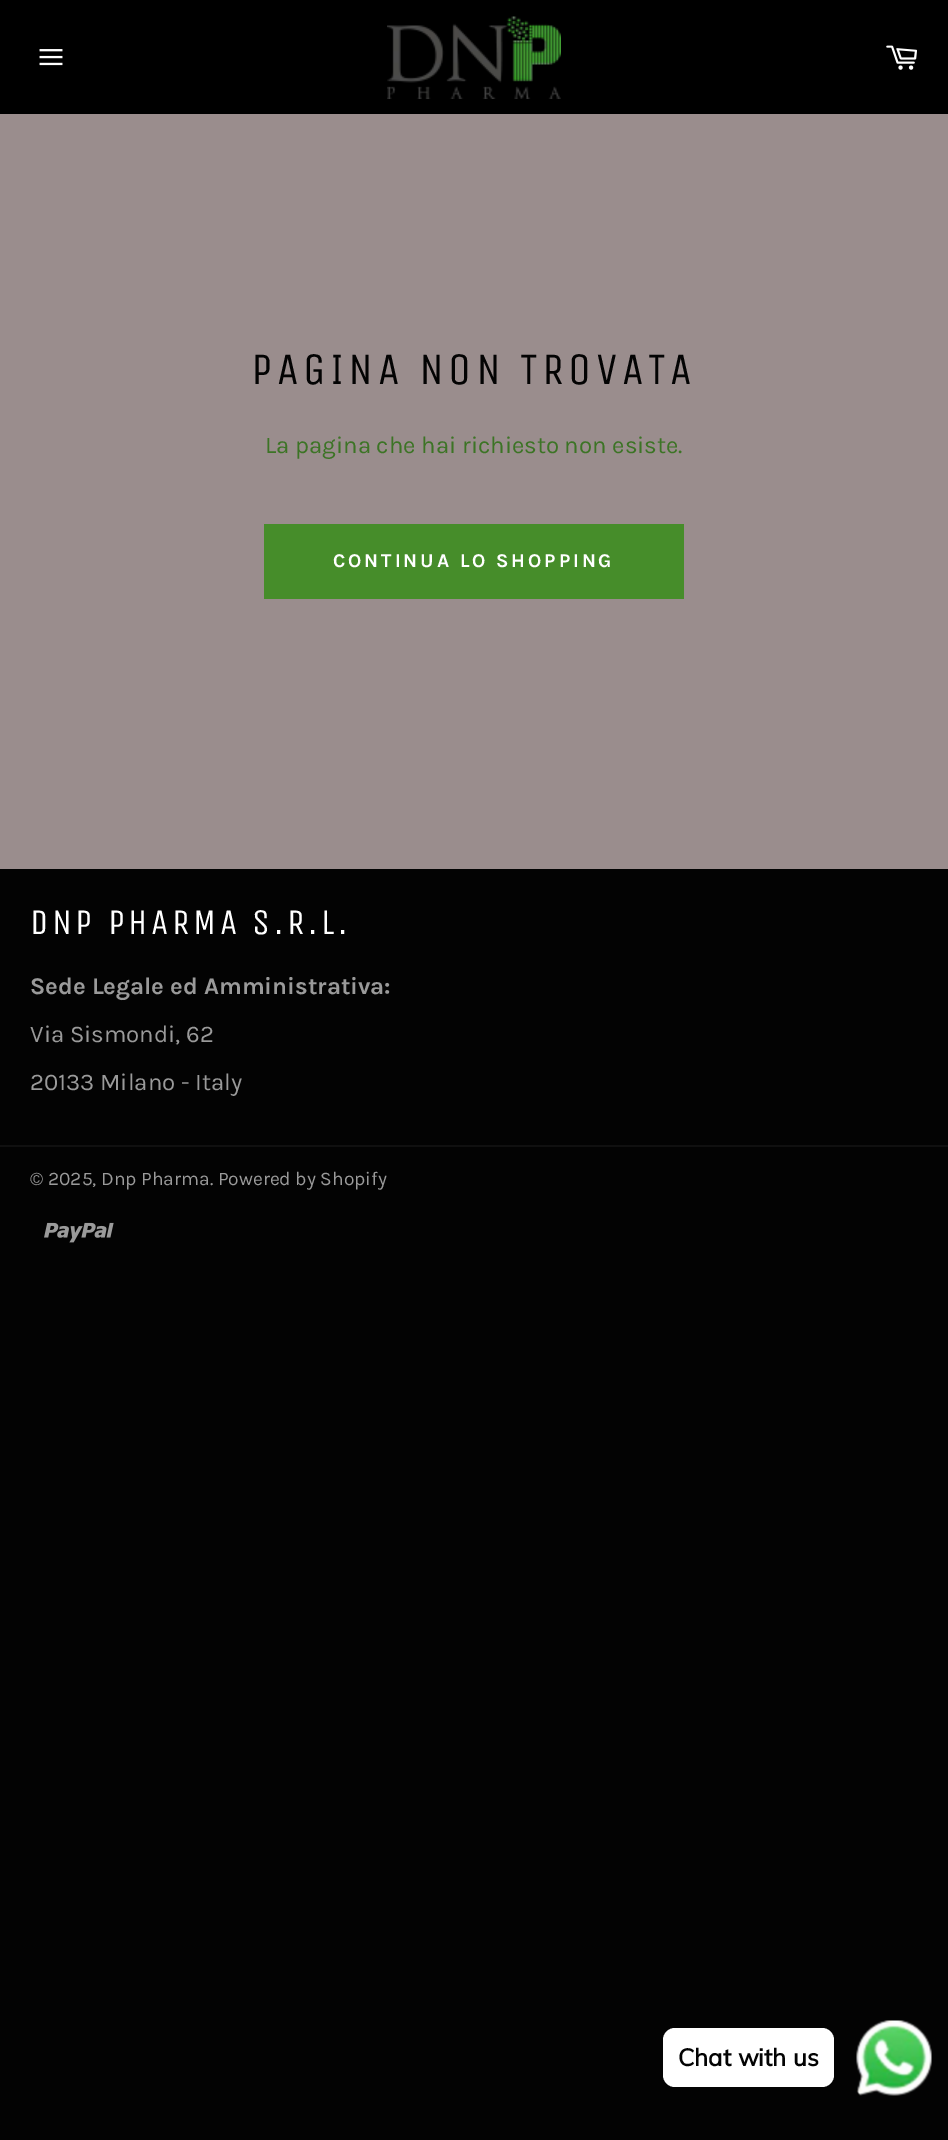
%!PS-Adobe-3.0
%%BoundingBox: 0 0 948 2140
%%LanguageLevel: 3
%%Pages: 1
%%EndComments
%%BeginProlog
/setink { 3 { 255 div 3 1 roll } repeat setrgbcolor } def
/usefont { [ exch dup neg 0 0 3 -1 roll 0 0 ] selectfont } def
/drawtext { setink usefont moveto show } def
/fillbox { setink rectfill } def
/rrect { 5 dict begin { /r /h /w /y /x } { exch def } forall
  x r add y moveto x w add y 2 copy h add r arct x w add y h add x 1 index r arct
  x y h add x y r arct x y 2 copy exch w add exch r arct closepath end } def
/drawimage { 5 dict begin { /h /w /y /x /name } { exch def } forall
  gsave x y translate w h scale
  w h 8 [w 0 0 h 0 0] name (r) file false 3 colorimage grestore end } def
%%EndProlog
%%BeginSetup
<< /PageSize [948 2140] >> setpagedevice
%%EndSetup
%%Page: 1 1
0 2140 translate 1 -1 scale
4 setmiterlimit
0 0 948 2140 3 3 3 fillbox
0 114 948 755 154 141 141 fillbox
0 0 948 114 0 0 0 fillbox
(assets/img1.rgb) 39 49 24 17 drawimage
(assets/img2.rgb) 387 16 174 83 drawimage
(assets/img3.rgb) 886 45 31 25 drawimage
/UnicaOne-Regular 45 usefont
3 3 3 setink
251 384 moveto 4.5 0 (PAGINA NON TROVATA) ashow
(La pagina che hai richiesto non esiste.) 265 453 /Karla-Regular 24 60 116 37 drawtext
264 524 420 75 70 141 42 fillbox
/Karla-Bold 19.5 usefont
255 255 255 setink
333 567 moveto 2.9 0 (CONTINUA LO SHOPPING) ashow
/UnicaOne-Regular 36 usefont
30 934 moveto 3.6 0 (DNP PHARMA S.R.L.) ashow
(Sede Legale ed Amministrativa:) 30 994 /Karla-Bold 24 154 154 154 drawtext
(Via Sismondi, 62) 30 1042 /Karla-Regular 24 154 154 154 drawtext
(20133 Milano - Italy) 30 1090 /Karla-Regular 24 154 154 154 drawtext
0 1145 948 2 16 16 16 fillbox
(© 2025, Dnp Pharma. Powered by Shopify) 30 1185 /Karla-Regular 19.25 154 154 154 drawtext
(assets/img4.rgb) 44 1222 70 21 drawimage
(assets/img5.rgb) 856 2020 76 76 drawimage
255 255 255 setink
663 2028 171 59 12 rrect fill
(Chat with us) 678 2066 /Muli-Bold 24 3 3 3 drawtext
showpage
%%EOF
